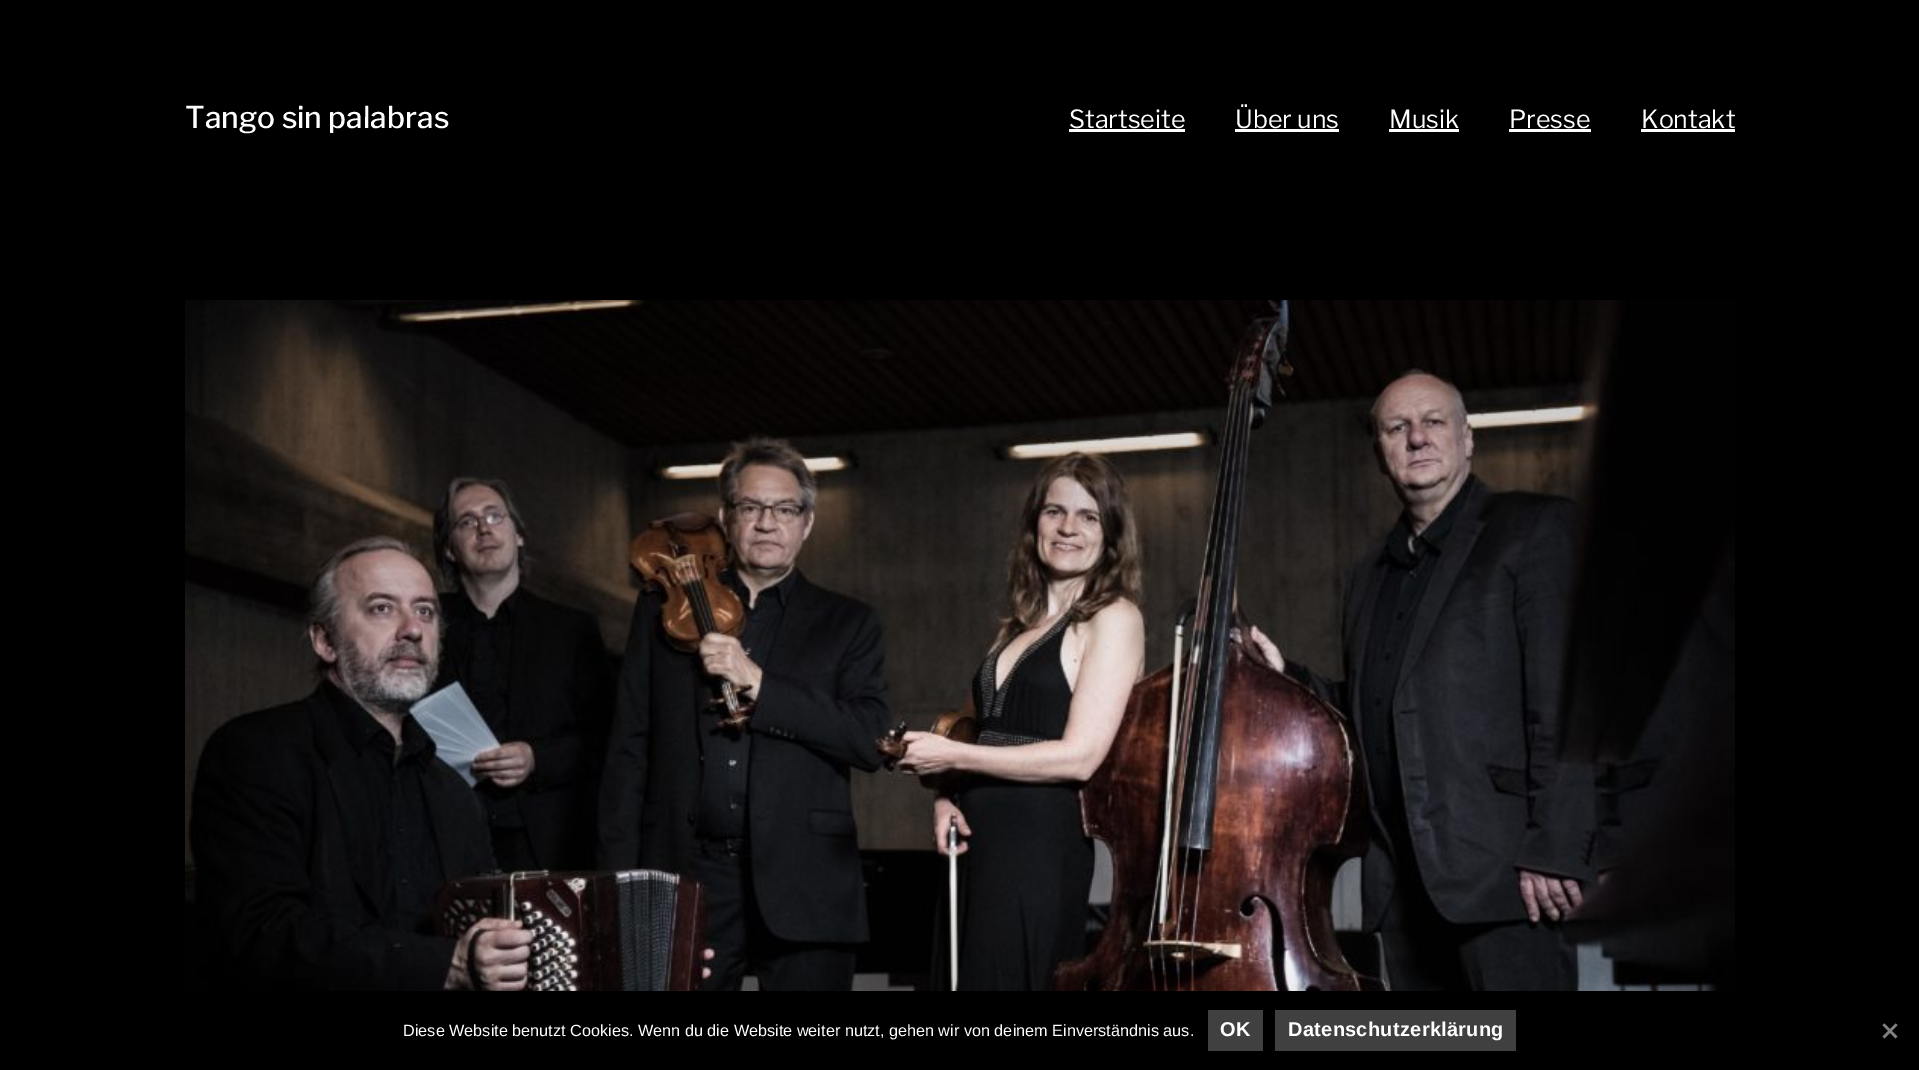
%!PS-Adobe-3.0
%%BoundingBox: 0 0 1919 1070
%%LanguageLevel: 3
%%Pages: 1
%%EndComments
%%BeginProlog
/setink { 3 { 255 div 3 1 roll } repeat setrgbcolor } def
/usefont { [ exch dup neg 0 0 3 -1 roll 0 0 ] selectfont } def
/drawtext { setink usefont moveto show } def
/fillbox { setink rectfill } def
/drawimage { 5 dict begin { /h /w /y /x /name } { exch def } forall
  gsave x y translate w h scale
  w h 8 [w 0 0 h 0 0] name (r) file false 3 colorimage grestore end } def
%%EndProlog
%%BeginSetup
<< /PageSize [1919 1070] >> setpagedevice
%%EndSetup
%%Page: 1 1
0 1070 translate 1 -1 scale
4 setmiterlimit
0 0 1919 1070 0 0 0 fillbox
(Tango sin palabras) 185 128 /LibreFranklin-Medium 30 255 255 255 drawtext
(Startseite) 1069 128 /LibreFranklin-Regular 25 255 255 255 drawtext
1069 129 116 3 255 255 255 fillbox
(Über uns) 1235 128 /LibreFranklin-Regular 25 255 255 255 drawtext
1235 129 104 3 255 255 255 fillbox
(Musik) 1389 128 /LibreFranklin-Regular 25 255 255 255 drawtext
1389 129 70 3 255 255 255 fillbox
(Presse) 1509 128 /LibreFranklin-Regular 25 255 255 255 drawtext
1509 129 82 3 255 255 255 fillbox
(Kontakt) 1641 128 /LibreFranklin-Regular 25 255 255 255 drawtext
1641 129 94 3 255 255 255 fillbox
(assets/img1.rgb) 185 300 1550 691 drawimage
(Diese Website benutzt Cookies. Wenn du die Website weiter nutzt, gehen wir von deinem Einverständnis aus.) 403 1036 /LiberationSans-Regular 16.25 255 255 255 drawtext
1208 1010 55 41 64 64 64 fillbox
/LiberationSans-Bold 20 usefont
255 255 255 setink
1220 1036 moveto 0.3 0 (OK) ashow
1275 1010 241 41 64 64 64 fillbox
255 255 255 setink
1288 1036 moveto 0.3 0 (Datenschutzerklärung) ashow
128 128 128 setink
1895.5 1023.5 moveto 1897.5 1025 lineto 1884.5 1038.5 lineto 1882.5 1036.5 lineto closepath fill
1882.5 1025 moveto 1884.5 1023.5 lineto 1897.5 1036.5 lineto 1895.5 1038.5 lineto closepath fill
showpage
%%EOF
